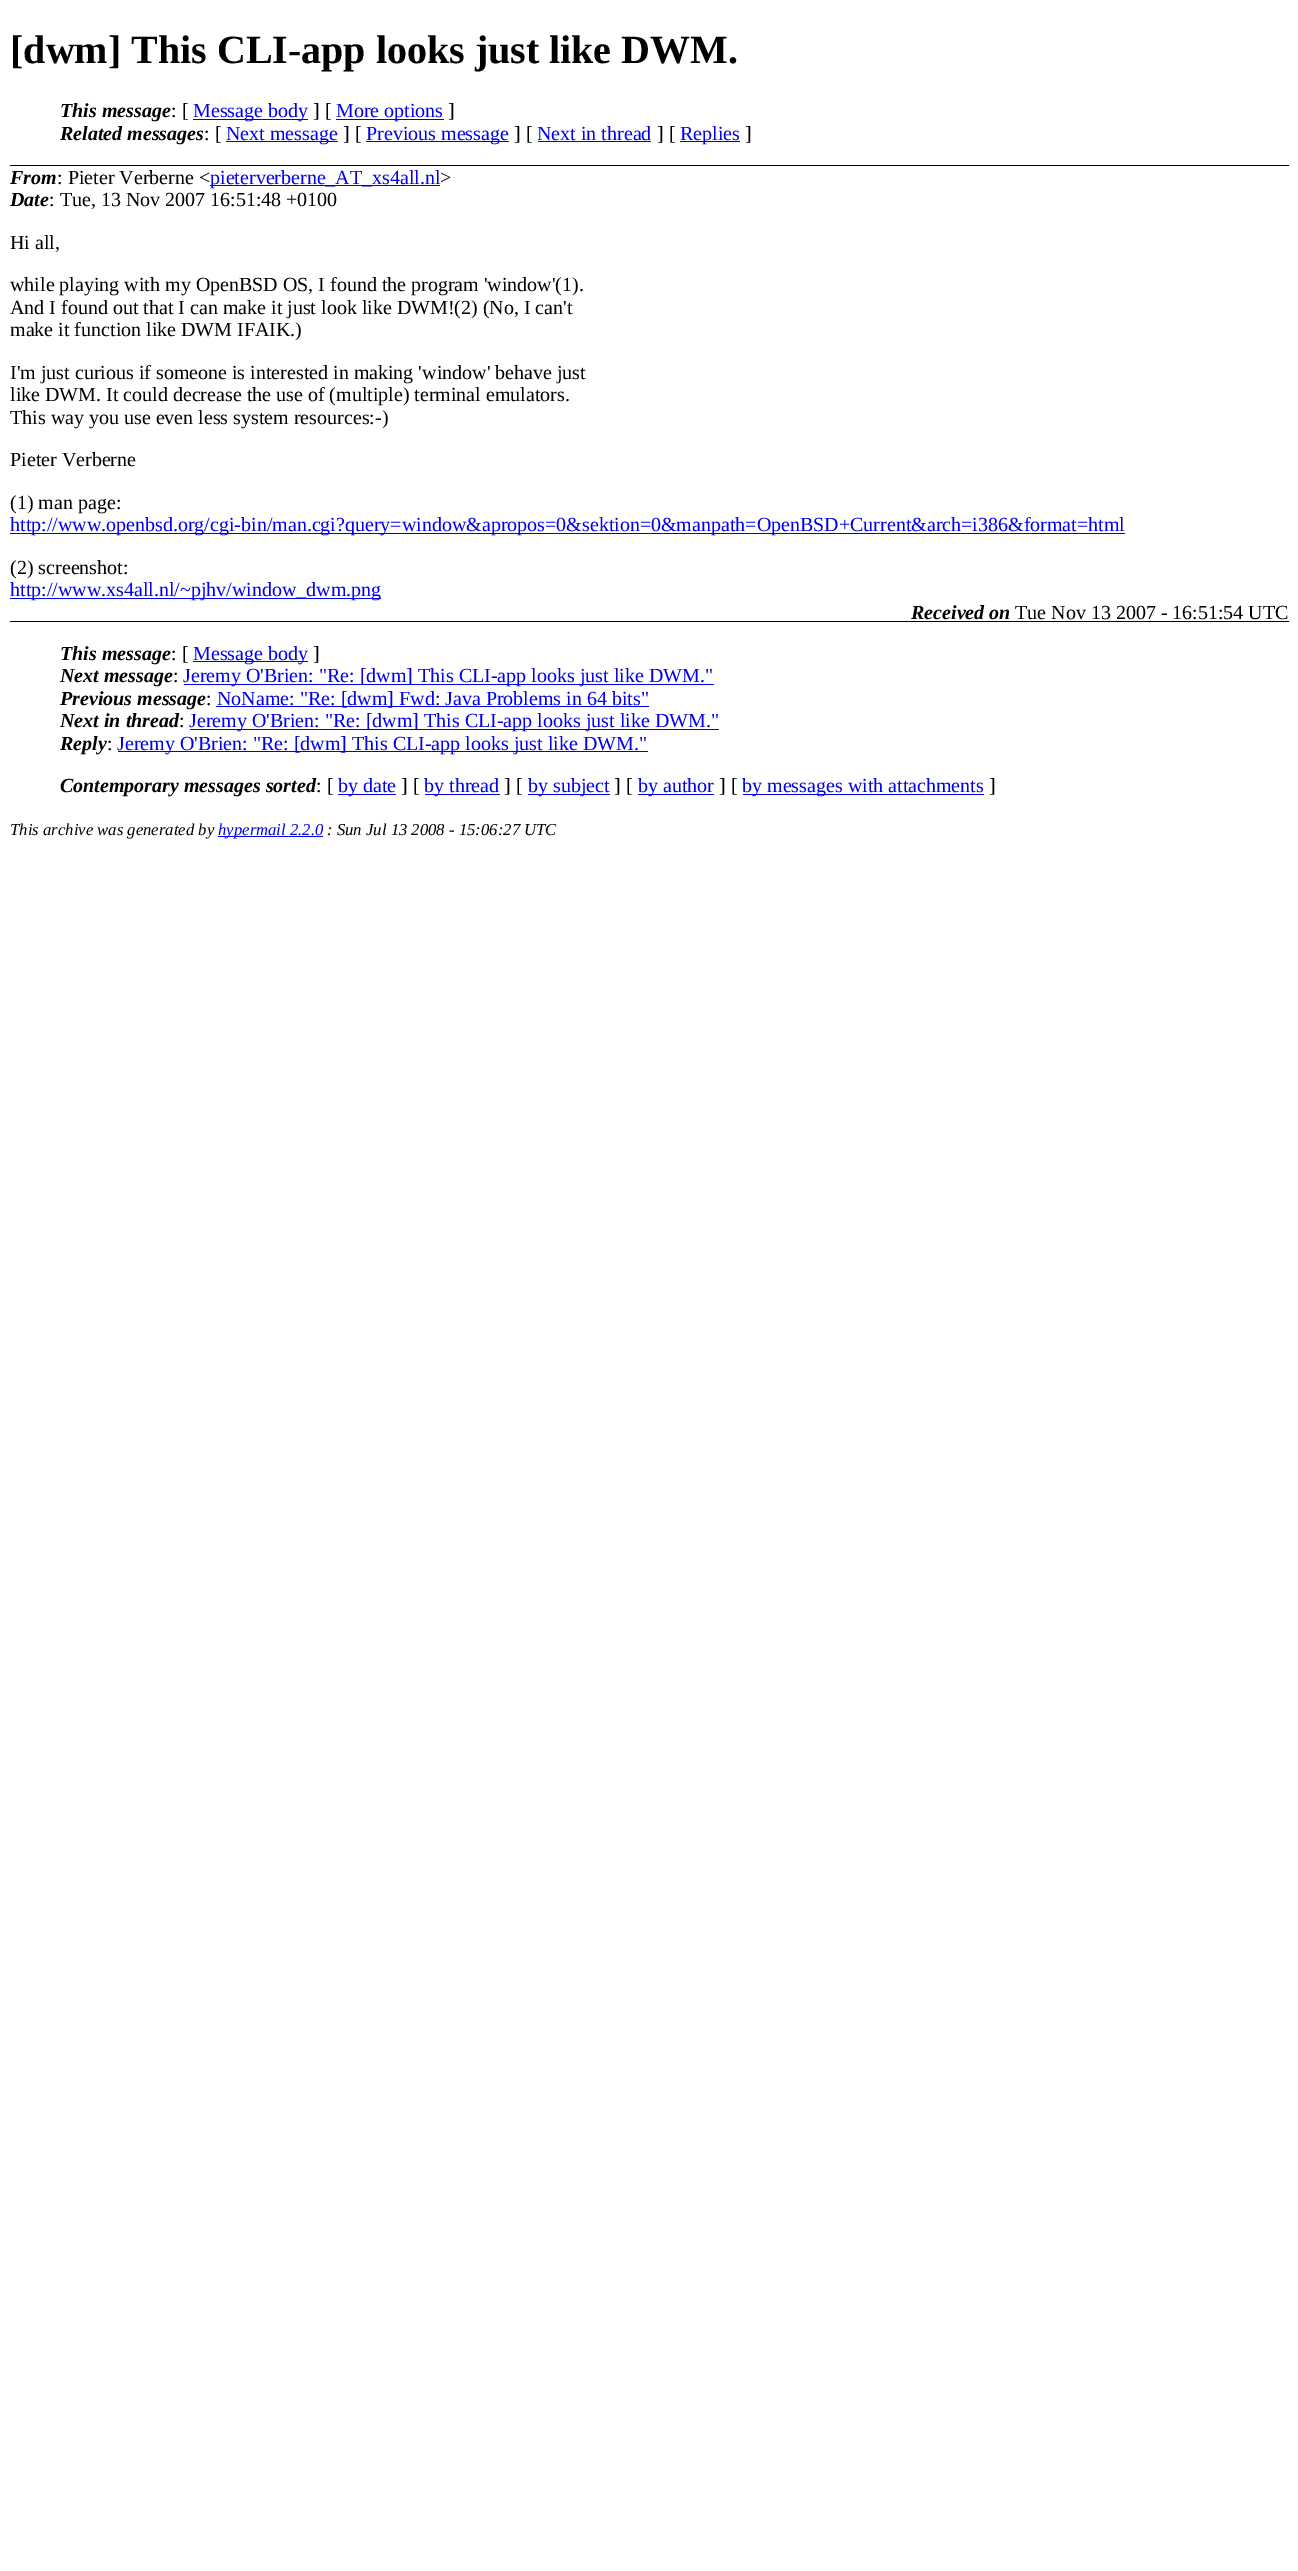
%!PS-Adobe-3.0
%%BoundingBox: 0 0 1298 2571
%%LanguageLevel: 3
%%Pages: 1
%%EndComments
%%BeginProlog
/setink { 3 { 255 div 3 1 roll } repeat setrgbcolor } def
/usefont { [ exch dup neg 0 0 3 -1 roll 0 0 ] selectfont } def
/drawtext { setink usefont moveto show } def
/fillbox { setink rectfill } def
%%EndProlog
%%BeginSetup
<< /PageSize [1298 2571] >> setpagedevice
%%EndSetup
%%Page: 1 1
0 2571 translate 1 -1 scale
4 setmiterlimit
0 0 1298 2571 255 255 255 fillbox
10 165 1279 1 0 0 0 fillbox
([dwm] This CLI-app looks just like DWM.) 10 63 /LiberationSerif-Bold 40 0 0 0 drawtext
(This message) 60 117 /LiberationSerif-BoldItalic 20 0 0 0 drawtext
(: [) 171 117 /LiberationSerif-Regular 20 0 0 0 drawtext
193 119 115 1 0 0 238 fillbox
(Message body) 193 117 /LiberationSerif-Regular 20 0 0 238 drawtext
(] [) 313 117 /LiberationSerif-Regular 20 0 0 0 drawtext
336 119 108 1 0 0 238 fillbox
(More options) 336 117 /LiberationSerif-Regular 20 0 0 238 drawtext
(]) 448 117 /LiberationSerif-Regular 20 0 0 0 drawtext
(Related messages) 60 140 /LiberationSerif-BoldItalic 20 0 0 0 drawtext
(: [) 204 140 /LiberationSerif-Regular 20 0 0 0 drawtext
226 141 112 1 0 0 238 fillbox
(Next message) 226 140 /LiberationSerif-Regular 20 0 0 238 drawtext
(] [) 343 140 /LiberationSerif-Regular 20 0 0 0 drawtext
366 141 143 1 0 0 238 fillbox
(Previous message) 366 140 /LiberationSerif-Regular 20 0 0 238 drawtext
(] [) 514 140 /LiberationSerif-Regular 20 0 0 0 drawtext
(Next in thread) 537 140 /LiberationSerif-Regular 20 0 0 238 drawtext
538 141 113 1 0 0 238 fillbox
(] [) 657 140 /LiberationSerif-Regular 20 0 0 0 drawtext
680 141 60 1 0 0 238 fillbox
(Replies) 680 140 /LiberationSerif-Regular 20 0 0 238 drawtext
(]) 745 140 /LiberationSerif-Regular 20 0 0 0 drawtext
(From) 10 184 /LiberationSerif-BoldItalic 20 0 0 0 drawtext
(: Pieter Verberne <) 57 184 /LiberationSerif-Regular 20 0 0 0 drawtext
210 185 230 1 0 0 238 fillbox
(pieterverberne_AT_xs4all.nl) 210 184 /LiberationSerif-Regular 20 0 0 238 drawtext
(>) 440 184 /LiberationSerif-Regular 20 0 0 0 drawtext
(Date) 10 206 /LiberationSerif-BoldItalic 20 0 0 0 drawtext
(: Tue, 13 Nov 2007 16:51:48 +0100) 49 206 /LiberationSerif-Regular 20 0 0 0 drawtext
(Hi all,) 10 249 /LiberationSerif-Regular 20 0 0 0 drawtext
(while playing with my OpenBSD OS, I found the program 'window'\(1\).) 10 291 /LiberationSerif-Regular 20 0 0 0 drawtext
(And I found out that I can make it just look like DWM!\(2\) \(No, I can't) 10 314 /LiberationSerif-Regular 20 0 0 0 drawtext
(make it function like DWM IFAIK.\)) 10 336 /LiberationSerif-Regular 20 0 0 0 drawtext
(I'm just curious if someone is interested in making 'window' behave just) 10 379 /LiberationSerif-Regular 20 0 0 0 drawtext
(like DWM. It could decrease the use of \(multiple\) terminal emulators.) 10 401 /LiberationSerif-Regular 20 0 0 0 drawtext
(This way you use even less system resources:-\)) 10 424 /LiberationSerif-Regular 20 0 0 0 drawtext
(Pieter Verberne) 10 466 /LiberationSerif-Regular 20 0 0 0 drawtext
(\(1\) man page:) 10 509 /LiberationSerif-Regular 20 0 0 0 drawtext
10 533 1115 1 0 0 238 fillbox
(http://www.openbsd.org/cgi-bin/man.cgi?query=window&apropos=0&sektion=0&manpath=OpenBSD+Current&arch=i386&format=html) 10 531 /LiberationSerif-Regular 20 0 0 238 drawtext
(\(2\) screenshot:) 10 574 /LiberationSerif-Regular 20 0 0 0 drawtext
10 598 371 1 0 0 238 fillbox
(http://www.xs4all.nl/~pjhv/window_dwm.png) 10 596 /LiberationSerif-Regular 20 0 0 238 drawtext
(Received on) 911 619 /LiberationSerif-BoldItalic 20 0 0 0 drawtext
(Tue Nov 13 2007 - 16:51:54 UTC) 1015 619 /LiberationSerif-Regular 20 0 0 0 drawtext
10 621 1279 1 0 0 0 fillbox
(This message) 60 660 /LiberationSerif-BoldItalic 20 0 0 0 drawtext
(: [) 171 660 /LiberationSerif-Regular 20 0 0 0 drawtext
193 661 115 1 0 0 238 fillbox
(Message body) 193 660 /LiberationSerif-Regular 20 0 0 238 drawtext
(]) 313 660 /LiberationSerif-Regular 20 0 0 0 drawtext
(Next message) 60 682 /LiberationSerif-BoldItalic 20 0 0 0 drawtext
(:) 173 682 /LiberationSerif-Regular 20 0 0 0 drawtext
184 684 530 1 0 0 238 fillbox
(Jeremy O'Brien: "Re: [dwm] This CLI-app looks just like DWM.") 183 682 /LiberationSerif-Regular 20 0 0 238 drawtext
(Previous message) 60 705 /LiberationSerif-BoldItalic 20 0 0 0 drawtext
(:) 206 705 /LiberationSerif-Regular 20 0 0 0 drawtext
216 706 433 1 0 0 238 fillbox
(NoName: "Re: [dwm] Fwd: Java Problems in 64 bits") 217 705 /LiberationSerif-Regular 20 0 0 238 drawtext
(Next in thread) 60 727 /LiberationSerif-BoldItalic 20 0 0 0 drawtext
(:) 179 727 /LiberationSerif-Regular 20 0 0 0 drawtext
190 729 529 1 0 0 238 fillbox
(Jeremy O'Brien: "Re: [dwm] This CLI-app looks just like DWM.") 189 727 /LiberationSerif-Regular 20 0 0 238 drawtext
(Reply) 60 750 /LiberationSerif-BoldItalic 20 0 0 0 drawtext
(:) 107 750 /LiberationSerif-Regular 20 0 0 0 drawtext
118 751 530 1 0 0 238 fillbox
(Jeremy O'Brien: "Re: [dwm] This CLI-app looks just like DWM.") 117 750 /LiberationSerif-Regular 20 0 0 238 drawtext
(Contemporary messages sorted) 60 792 /LiberationSerif-BoldItalic 20 0 0 0 drawtext
(: [) 316 792 /LiberationSerif-Regular 20 0 0 0 drawtext
338 794 58 1 0 0 238 fillbox
(by date) 338 792 /LiberationSerif-Regular 20 0 0 238 drawtext
(] [) 401 792 /LiberationSerif-Regular 20 0 0 0 drawtext
425 794 75 1 0 0 238 fillbox
(by thread) 424 792 /LiberationSerif-Regular 20 0 0 238 drawtext
(] [) 504 792 /LiberationSerif-Regular 20 0 0 0 drawtext
528 794 82 1 0 0 238 fillbox
(by subject) 528 792 /LiberationSerif-Regular 20 0 0 238 drawtext
(] [) 614 792 /LiberationSerif-Regular 20 0 0 0 drawtext
638 794 76 1 0 0 238 fillbox
(by author) 638 792 /LiberationSerif-Regular 20 0 0 238 drawtext
(] [) 719 792 /LiberationSerif-Regular 20 0 0 0 drawtext
743 794 241 1 0 0 238 fillbox
(by messages with attachments) 742 792 /LiberationSerif-Regular 20 0 0 238 drawtext
(]) 989 792 /LiberationSerif-Regular 20 0 0 0 drawtext
(This archive was generated by) 10 835 /LiberationSerif-Italic 16.7 0 0 0 drawtext
218 836 105 1 0 0 238 fillbox
(hypermail 2.2.0) 218 835 /LiberationSerif-Italic 16.7 0 0 238 drawtext
(: Sun Jul 13 2008 - 15:06:27 UTC) 327 835 /LiberationSerif-Italic 16.7 0 0 0 drawtext
showpage
%%EOF
